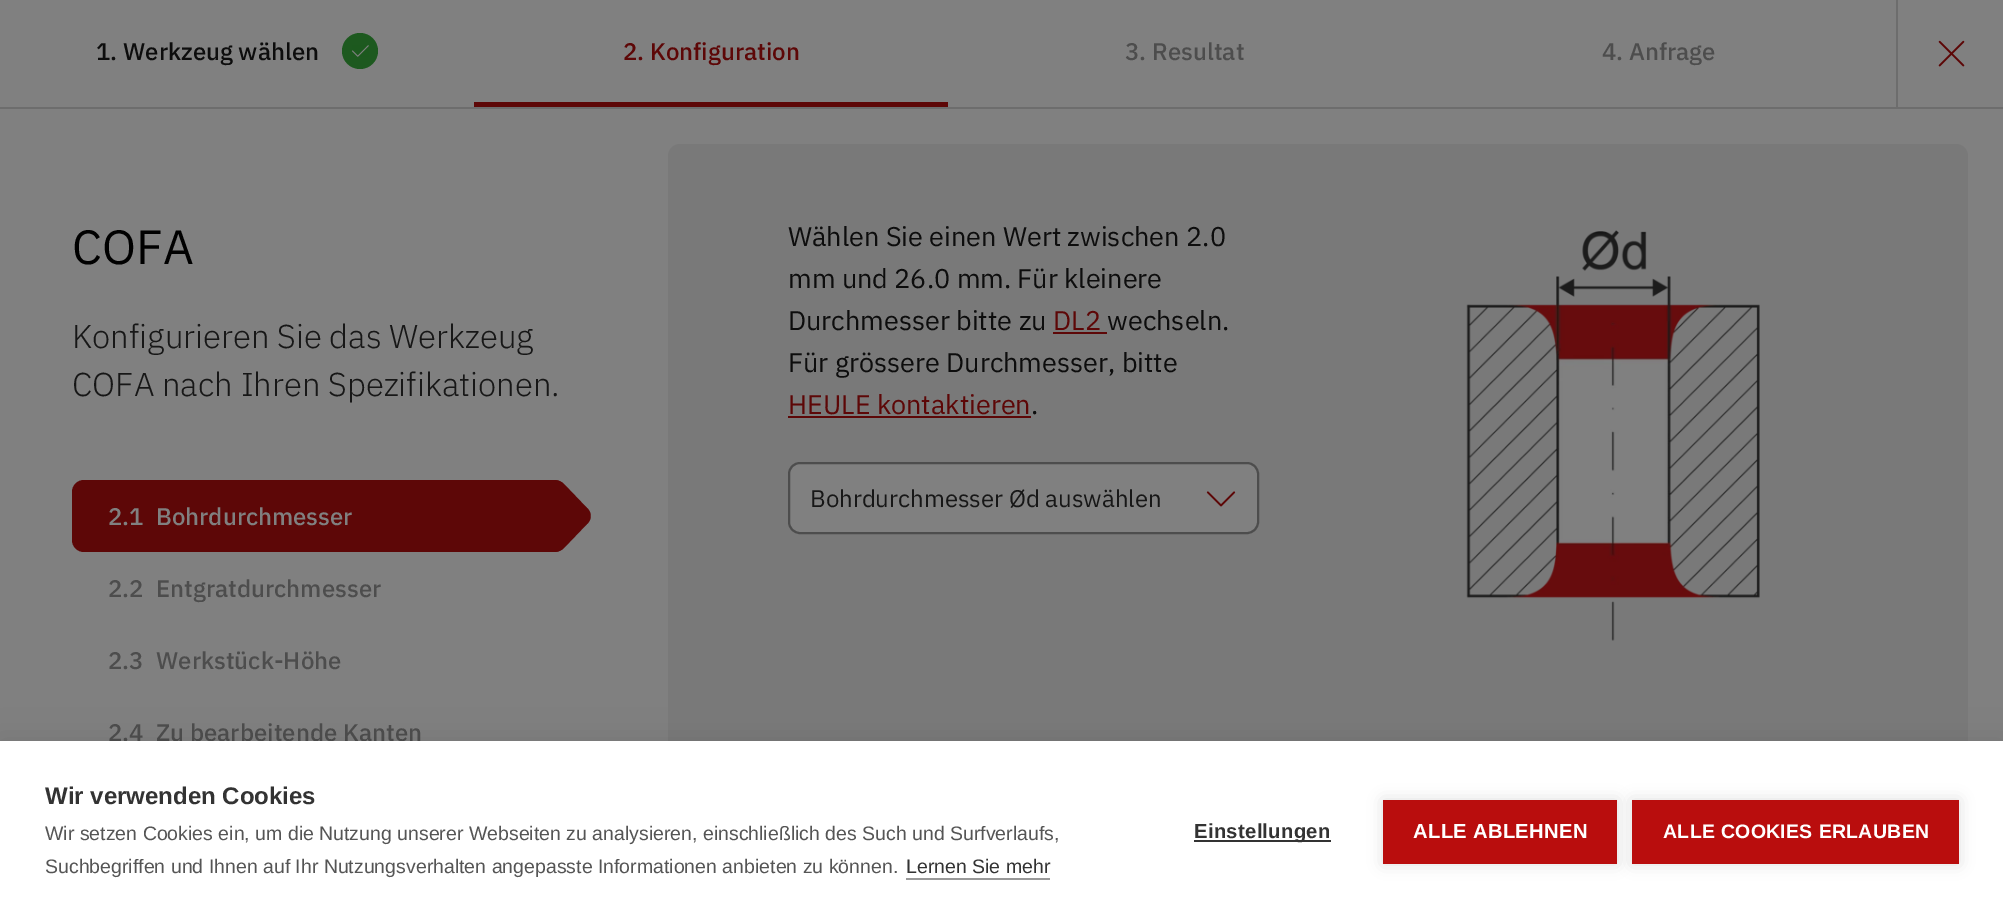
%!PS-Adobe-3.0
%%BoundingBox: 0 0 2003 921
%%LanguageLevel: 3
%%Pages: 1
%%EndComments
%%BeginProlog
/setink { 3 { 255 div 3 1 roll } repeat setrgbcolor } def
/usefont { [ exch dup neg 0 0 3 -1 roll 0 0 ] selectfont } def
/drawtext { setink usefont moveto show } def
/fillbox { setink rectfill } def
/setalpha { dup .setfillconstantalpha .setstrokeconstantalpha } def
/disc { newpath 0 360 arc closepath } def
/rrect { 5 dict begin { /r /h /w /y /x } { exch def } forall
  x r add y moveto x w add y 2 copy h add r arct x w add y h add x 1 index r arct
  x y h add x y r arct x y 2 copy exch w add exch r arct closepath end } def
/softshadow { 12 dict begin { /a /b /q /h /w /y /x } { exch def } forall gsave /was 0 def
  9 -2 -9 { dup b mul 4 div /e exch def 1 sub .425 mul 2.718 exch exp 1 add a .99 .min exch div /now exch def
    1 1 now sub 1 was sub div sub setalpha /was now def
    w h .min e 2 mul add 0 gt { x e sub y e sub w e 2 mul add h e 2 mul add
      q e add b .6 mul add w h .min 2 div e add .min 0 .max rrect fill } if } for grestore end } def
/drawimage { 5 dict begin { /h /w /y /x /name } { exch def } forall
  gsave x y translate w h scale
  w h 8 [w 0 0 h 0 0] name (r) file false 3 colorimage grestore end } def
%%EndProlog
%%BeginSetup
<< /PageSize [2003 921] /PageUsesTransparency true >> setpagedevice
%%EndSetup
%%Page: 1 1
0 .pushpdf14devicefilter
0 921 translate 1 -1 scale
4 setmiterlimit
0 0 2003 921 128 128 128 fillbox
0 107 2003 2 109 109 109 fillbox
(1. Werkzeug wählen) 96 60 /IBMPlexSans-Medium 24 13 13 13 drawtext
29 89 31 setink
360 51 18 disc fill
(assets/img1.rgb) 352 45 17 12 drawimage
474 102 474 5 93 7 7 fillbox
(2. Konfiguration) 623 60 /IBMPlexSans-Medium 24 93 7 7 drawtext
(3. Resultat) 1125 60 /IBMPlexSans-Medium 24 77 77 77 drawtext
(4. Anfrage) 1602 60 /IBMPlexSans-Medium 24 77 77 77 drawtext
1896 0 2 108 109 109 109 fillbox
(assets/img2.rgb) 1938 40 27 27 drawimage
(COFA) 72 264 /IBMPlexSans-Regular 48 0 0 0 drawtext
(Konfigurieren Sie das Werkzeug) 72 348 /IBMPlexSans-Light 33 23 23 23 drawtext
(COFA nach Ihren Spezifikationen.) 72 396 /IBMPlexSans-Light 33 23 23 23 drawtext
93 7 7 setink
564 484 moveto 587 508 lineto 592 512 592 520 587 524 curveto 564 548 lineto 559 553 552 553 547 548 curveto 524 524 lineto 519 520 519 512 524 508 curveto 547 484 lineto 552 479 559 479 564 484 curveto closepath fill
72 480 494 72 12 rrect fill
(2.1) 108 525 /IBMPlexSans-Medium 24 128 128 128 drawtext
(Bohrdurchmesser) 156 525 /IBMPlexSans-Medium 24 128 128 128 drawtext
(2.2) 108 597 /IBMPlexSans-Medium 24 77 77 77 drawtext
(Entgratdurchmesser) 156 597 /IBMPlexSans-Medium 24 77 77 77 drawtext
(2.3) 108 669 /IBMPlexSans-Medium 24 77 77 77 drawtext
(Werkstück-Höhe) 156 669 /IBMPlexSans-Medium 24 77 77 77 drawtext
(2.4) 108 741 /IBMPlexSans-Medium 24 77 77 77 drawtext
(Zu bearbeitende Kanten) 156 741 /IBMPlexSans-Medium 24 77 77 77 drawtext
121 121 121 setink
668 144 1300 633 12 rrect fill
(Wählen Sie einen Wert zwischen 2.0) 788 246 /IBMPlexSans-Regular 27 13 13 13 drawtext
(mm und 26.0 mm. Für kleinere) 788 288 /IBMPlexSans-Regular 27 13 13 13 drawtext
(Durchmesser bitte zu) 788 330 /IBMPlexSans-Regular 27 13 13 13 drawtext
(DL2) 1053 330 /IBMPlexSans-Regular 27 93 7 7 drawtext
1053 332 54 2 93 7 7 fillbox
(wechseln.) 1107 330 /IBMPlexSans-Regular 27 13 13 13 drawtext
(Für grössere Durchmesser, bitte) 788 372 /IBMPlexSans-Regular 27 13 13 13 drawtext
(HEULE kontaktieren) 788 414 /IBMPlexSans-Regular 27 93 7 7 drawtext
788 416 243 2 93 7 7 fillbox
(.) 1031 414 /IBMPlexSans-Regular 27 13 13 13 drawtext
128 128 128 setink
789 463 469 70 11 rrect gsave fill grestore
77 77 77 setink
2 setlinewidth
stroke
(Bohrdurchmesser Ød auswählen) 810 507 /IBMPlexSans-Regular 24 23 23 23 drawtext
(assets/img3.rgb) 1206 491 30 16 drawimage
(assets/img4.rgb) 1466 230 294 411 drawimage
0 0 0 setink
0 741 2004 180 0 15 0.1 softshadow
0 741 2003 180 255 255 255 fillbox
(Wir verwenden Cookies) 45 804 /LiberationSans-Bold 24 51 51 51 drawtext
(Wir setzen Cookies ein, um die Nutzung unserer Webseiten zu analysieren, einschließlich des Such und Surfverlaufs,) 45 840 /LiberationSans-Regular 19.5 85 85 85 drawtext
(Suchbegriffen und Ihnen auf Ihr Nutzungsverhalten angepasste Informationen anbieten zu können.) 45 873 /LiberationSans-Regular 19.5 85 85 85 drawtext
(Lernen Sie mehr) 906 873 /LiberationSans-Regular 19.5 51 51 51 drawtext
906 878 144 2 153 153 153 fillbox
1194 840 137 2 51 51 51 fillbox
/LiberationSans-Bold 20.25 usefont
1194 838 moveto 0.3 0 (Einstellungen) ashow
0 0 0 setink
1383 800 234 64 0 7.5 0.12 softshadow
1383 800 234 64 185 13 13 fillbox
255 255 255 setink
1413 838 moveto 0.3 0 (ALLE ABLEHNEN) ashow
0 0 0 setink
1632 800 327 64 0 7.5 0.12 softshadow
1632 800 327 64 185 13 13 fillbox
/LiberationSans-Bold 19.5 usefont
255 255 255 setink
1663 838 moveto 0.3 0 (ALLE COOKIES ERLAUBEN) ashow
.poppdf14devicefilter showpage
%%EOF
